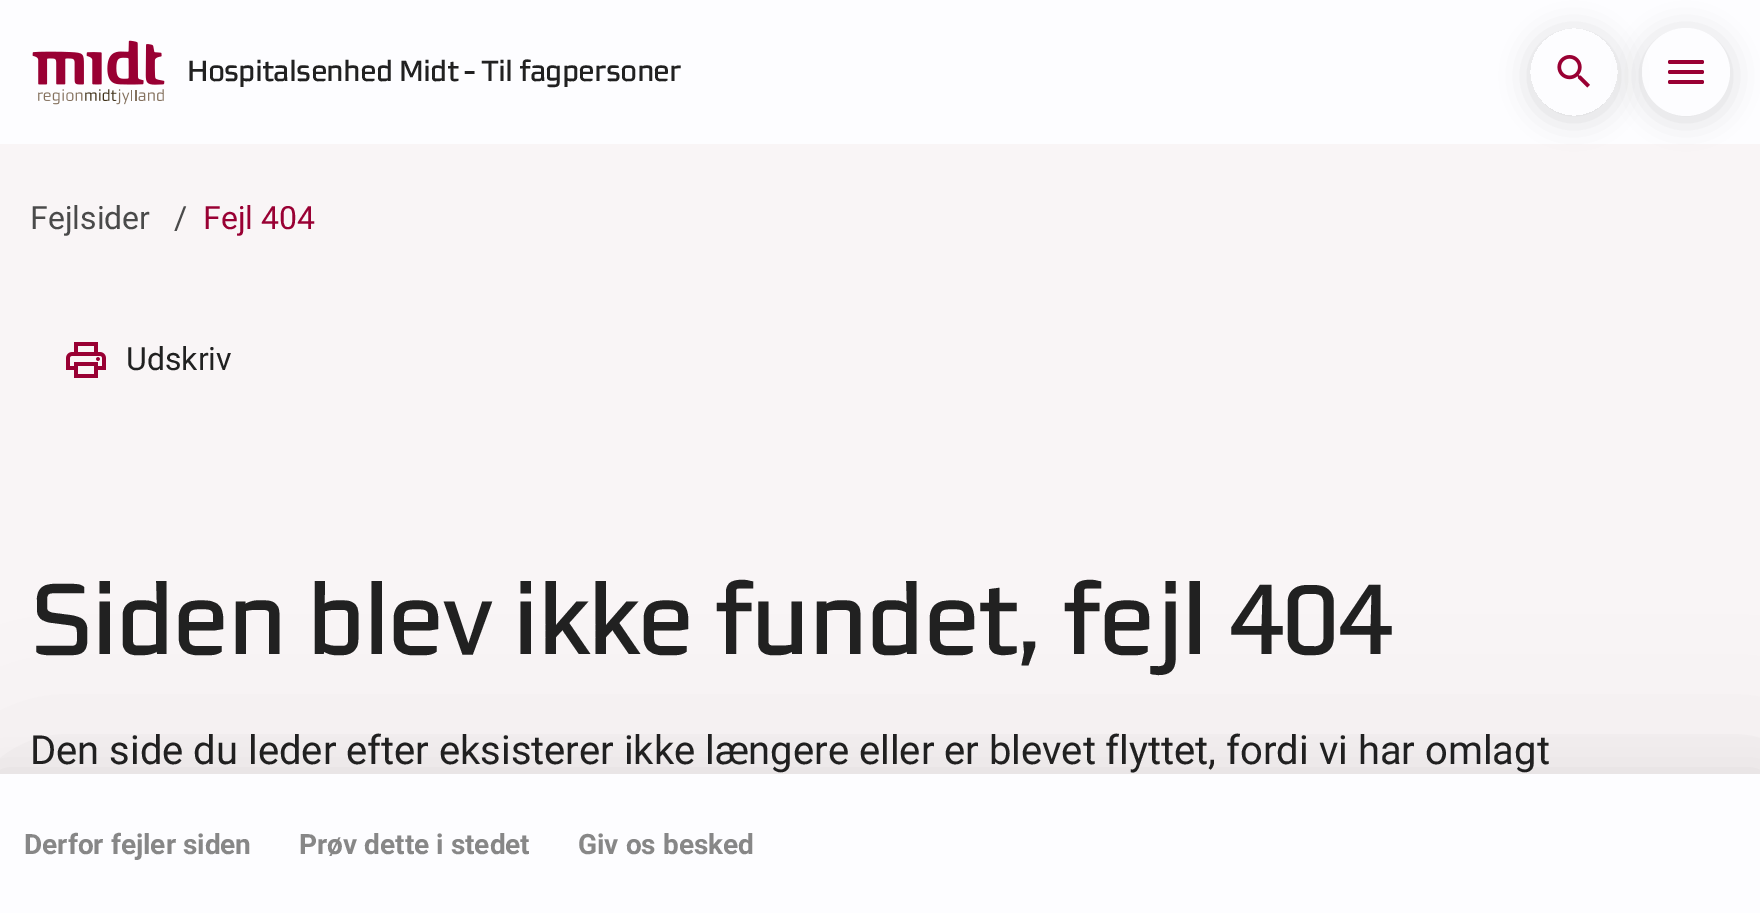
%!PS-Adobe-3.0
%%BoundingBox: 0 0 1760 913
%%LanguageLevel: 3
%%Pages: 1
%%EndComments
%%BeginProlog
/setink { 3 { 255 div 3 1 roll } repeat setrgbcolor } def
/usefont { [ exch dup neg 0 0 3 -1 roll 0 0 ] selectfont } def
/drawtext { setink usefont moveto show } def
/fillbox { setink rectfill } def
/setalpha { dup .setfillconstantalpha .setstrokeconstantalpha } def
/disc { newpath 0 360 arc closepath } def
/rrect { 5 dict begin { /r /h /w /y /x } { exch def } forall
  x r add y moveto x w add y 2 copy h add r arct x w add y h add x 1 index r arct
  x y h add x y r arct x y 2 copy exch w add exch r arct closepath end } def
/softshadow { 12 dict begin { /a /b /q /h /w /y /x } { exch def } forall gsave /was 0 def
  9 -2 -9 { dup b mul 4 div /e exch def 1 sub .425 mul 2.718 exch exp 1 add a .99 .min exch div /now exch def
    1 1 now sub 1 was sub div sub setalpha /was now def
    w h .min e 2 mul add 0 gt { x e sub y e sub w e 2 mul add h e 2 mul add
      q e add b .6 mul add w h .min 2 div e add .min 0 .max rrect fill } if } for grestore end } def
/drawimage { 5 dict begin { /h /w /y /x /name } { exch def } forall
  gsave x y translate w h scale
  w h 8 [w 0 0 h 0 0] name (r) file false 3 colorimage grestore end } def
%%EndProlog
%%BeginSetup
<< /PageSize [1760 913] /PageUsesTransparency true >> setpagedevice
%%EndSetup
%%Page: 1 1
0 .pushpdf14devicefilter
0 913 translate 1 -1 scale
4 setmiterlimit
0 0 1760 913 253 253 255 fillbox
(assets/img1.rgb) 32 40 133 65 drawimage
(Hospitalsenhed Midt - Til fagpersoner) 187 81 /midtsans-Bold 28 33 33 33 drawtext
0 144 1760 630 249 245 246 fillbox
33 33 33 setink
1642 32 88 88 44 14 0.15 softshadow
253 253 255 setink
1686 72 44 disc fill
gsave
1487 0 moveto 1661 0 lineto 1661 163 lineto 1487 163 lineto closepath 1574 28 moveto 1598.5 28 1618 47.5 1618 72 curveto 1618 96.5 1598.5 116 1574 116 curveto 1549.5 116 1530 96.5 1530 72 curveto 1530 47.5 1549.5 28 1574 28 curveto closepath eoclip newpath
33 33 33 setink
1530 32 88 88 44 14 0.15 softshadow
grestore
(assets/img2.rgb) 1557 55 33 33 drawimage
153 0 51 setink
1668 60 36 4 2 rrect fill
1668 70 36 4 2 rrect fill
1668 80 36 4 2 rrect fill
(Fejlsider) 30 229 /Roboto-Regular 32 74 74 74 drawtext
(/) 174 229 /Roboto-Regular 32 74 74 74 drawtext
(Fejl 404) 203 229 /Roboto-Regular 32 153 0 51 drawtext
(assets/img3.rgb) 66 342 40 36 drawimage
(Udskriv) 126 370 /Roboto-Regular 32 33 33 33 drawtext
(Siden blev ikke fundet, fejl 404) 30 654 /midtsans-Bold 96 33 33 33 drawtext
(Den side du leder efter eksisterer ikke længere eller er blevet flyttet, fordi vi har omlagt) 30 764 /Roboto-Regular 40 33 33 33 drawtext
0 0 0 setink
0 782 1760 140 0 20 0.1 softshadow
20 794 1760 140 0 80 0.1 softshadow
0 774 1760 139 253 253 255 fillbox
(Derfor fejler siden) 24 854 /Roboto-Bold 28 135 135 135 drawtext
(Prøv dette i stedet) 299 854 /Roboto-Bold 28 135 135 135 drawtext
(Giv os besked) 578 854 /Roboto-Bold 28 135 135 135 drawtext
.poppdf14devicefilter showpage
%%EOF
